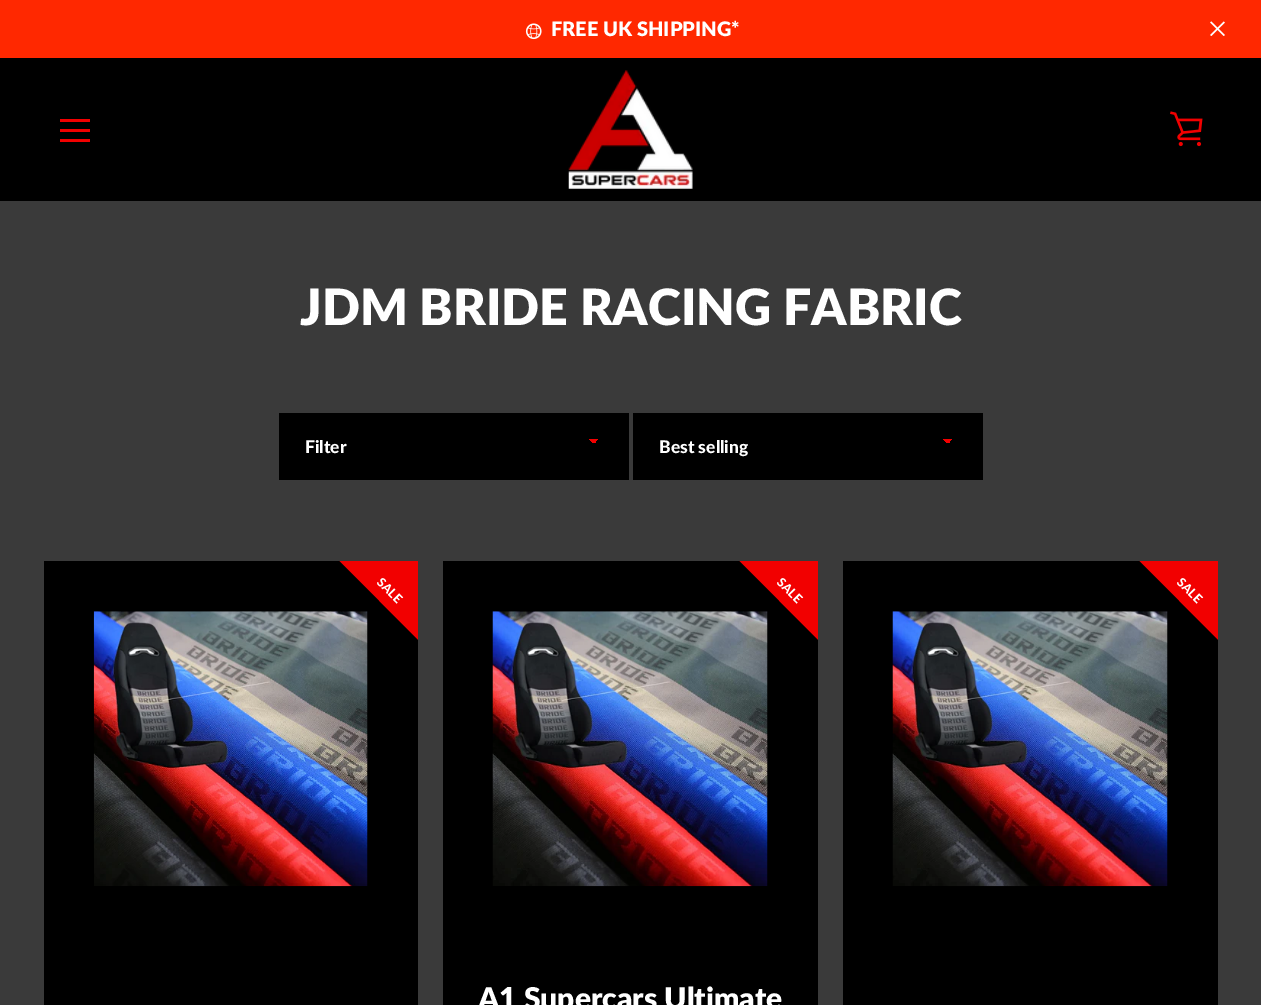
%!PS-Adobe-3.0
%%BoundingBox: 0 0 1261 1005
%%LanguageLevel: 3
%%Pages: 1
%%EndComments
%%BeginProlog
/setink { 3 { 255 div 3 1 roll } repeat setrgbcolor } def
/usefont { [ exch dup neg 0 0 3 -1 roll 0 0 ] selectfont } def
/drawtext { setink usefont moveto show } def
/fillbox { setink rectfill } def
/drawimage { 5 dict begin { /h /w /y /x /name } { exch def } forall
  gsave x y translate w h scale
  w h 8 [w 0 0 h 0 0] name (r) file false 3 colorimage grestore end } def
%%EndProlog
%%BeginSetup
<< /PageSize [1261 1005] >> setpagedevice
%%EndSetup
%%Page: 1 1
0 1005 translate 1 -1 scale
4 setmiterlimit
0 0 1261 1005 58 58 58 fillbox
0 58 1261 143 0 0 0 fillbox
0 0 1261 58 255 40 0 fillbox
(assets/img1.rgb) 525 23 17 17 drawimage
(FREE UK SHIPPING*) 551 36 /Lato-ExtraBold 20 255 255 255 drawtext
(assets/img2.rgb) 1210 21 15 15 drawimage
60 119 30 3 242 0 0 fillbox
60 129 30 3 242 0 0 fillbox
60 139 30 3 242 0 0 fillbox
(assets/img3.rgb) 568 70 125 119 drawimage
(assets/img4.rgb) 1170 111 33 36 drawimage
(JDM BRIDE RACING FABRIC) 300 325 /Lato-ExtraBold 50 255 255 255 drawtext
279 413 350 67 0 0 0 fillbox
gsave 594 439 moveto 599 439 lineto 599 443 lineto 594 443 lineto closepath clip newpath
<< /ShadingType 2 /ColorSpace /DeviceRGB /Coords [594 439 599 444] /Extend [true true] /Function << /FunctionType 3 /Domain [0 1] /Functions [<< /FunctionType 2 /Domain [0 1] /C0 [0.949 0 0] /C1 [0.949 0 0] /N 1 >> << /FunctionType 2 /Domain [0 1] /C0 [0 0 0] /C1 [0 0 0] /N 1 >>] /Bounds [0.5] /Encode [0 1 0 1] >> >> shfill grestore
gsave 589 439 moveto 594 439 lineto 594 443 lineto 589 443 lineto closepath clip newpath
<< /ShadingType 2 /ColorSpace /DeviceRGB /Coords [589 444 594 439] /Extend [true true] /Function << /FunctionType 3 /Domain [0 1] /Functions [<< /FunctionType 2 /Domain [0 1] /C0 [0 0 0] /C1 [0 0 0] /N 1 >> << /FunctionType 2 /Domain [0 1] /C0 [0.949 0 0] /C1 [0.949 0 0] /N 1 >>] /Bounds [0.5] /Encode [0 1 0 1] >> >> shfill grestore
(Filter) 305 453 /Lato-Black 17.5 255 255 255 drawtext
633 413 350 67 0 0 0 fillbox
gsave 948 439 moveto 953 439 lineto 953 443 lineto 948 443 lineto closepath clip newpath
<< /ShadingType 2 /ColorSpace /DeviceRGB /Coords [948 439 953 444] /Extend [true true] /Function << /FunctionType 3 /Domain [0 1] /Functions [<< /FunctionType 2 /Domain [0 1] /C0 [0.949 0 0] /C1 [0.949 0 0] /N 1 >> << /FunctionType 2 /Domain [0 1] /C0 [0 0 0] /C1 [0 0 0] /N 1 >>] /Bounds [0.5] /Encode [0 1 0 1] >> >> shfill grestore
gsave 943 439 moveto 948 439 lineto 948 443 lineto 943 443 lineto closepath clip newpath
<< /ShadingType 2 /ColorSpace /DeviceRGB /Coords [943 444 948 439] /Extend [true true] /Function << /FunctionType 3 /Domain [0 1] /Functions [<< /FunctionType 2 /Domain [0 1] /C0 [0 0 0] /C1 [0 0 0] /N 1 >> << /FunctionType 2 /Domain [0 1] /C0 [0.949 0 0] /C1 [0.949 0 0] /N 1 >>] /Bounds [0.5] /Encode [0 1 0 1] >> >> shfill grestore
(Best selling) 659 453 /Lato-Black 17.5 255 255 255 drawtext
44 561 374 444 0 0 0 fillbox
(assets/img5.rgb) 93 611 275 276 drawimage
gsave
44 561 374 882 rectclip
242 0 0 setink
344 459 moveto 521 636 lineto 467 689 lineto 291 512 lineto closepath fill
grestore
/Lato-Black 12.5 usefont
255 255 255 setink
gsave 376 583 translate 45 rotate 0 0 moveto (SALE) show grestore
443 561 375 444 0 0 0 fillbox
(assets/img6.rgb) 492 611 276 276 drawimage
gsave
443 561 375 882 rectclip
242 0 0 setink
744 459 moveto 921 636 lineto 867 689 lineto 691 512 lineto closepath fill
grestore
255 255 255 setink
gsave 776 583 translate 45 rotate 0 0 moveto (SALE) show grestore
(A1 Supercars Ultimate) 478 1009 /Lato-ExtraBold 30 255 255 255 drawtext
843 561 375 444 0 0 0 fillbox
(assets/img7.rgb) 892 611 276 276 drawimage
gsave
843 561 375 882 rectclip
242 0 0 setink
1144 459 moveto 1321 636 lineto 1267 689 lineto 1091 512 lineto closepath fill
grestore
/Lato-Black 12.5 usefont
255 255 255 setink
gsave 1176 583 translate 45 rotate 0 0 moveto (SALE) show grestore
showpage
%%EOF
